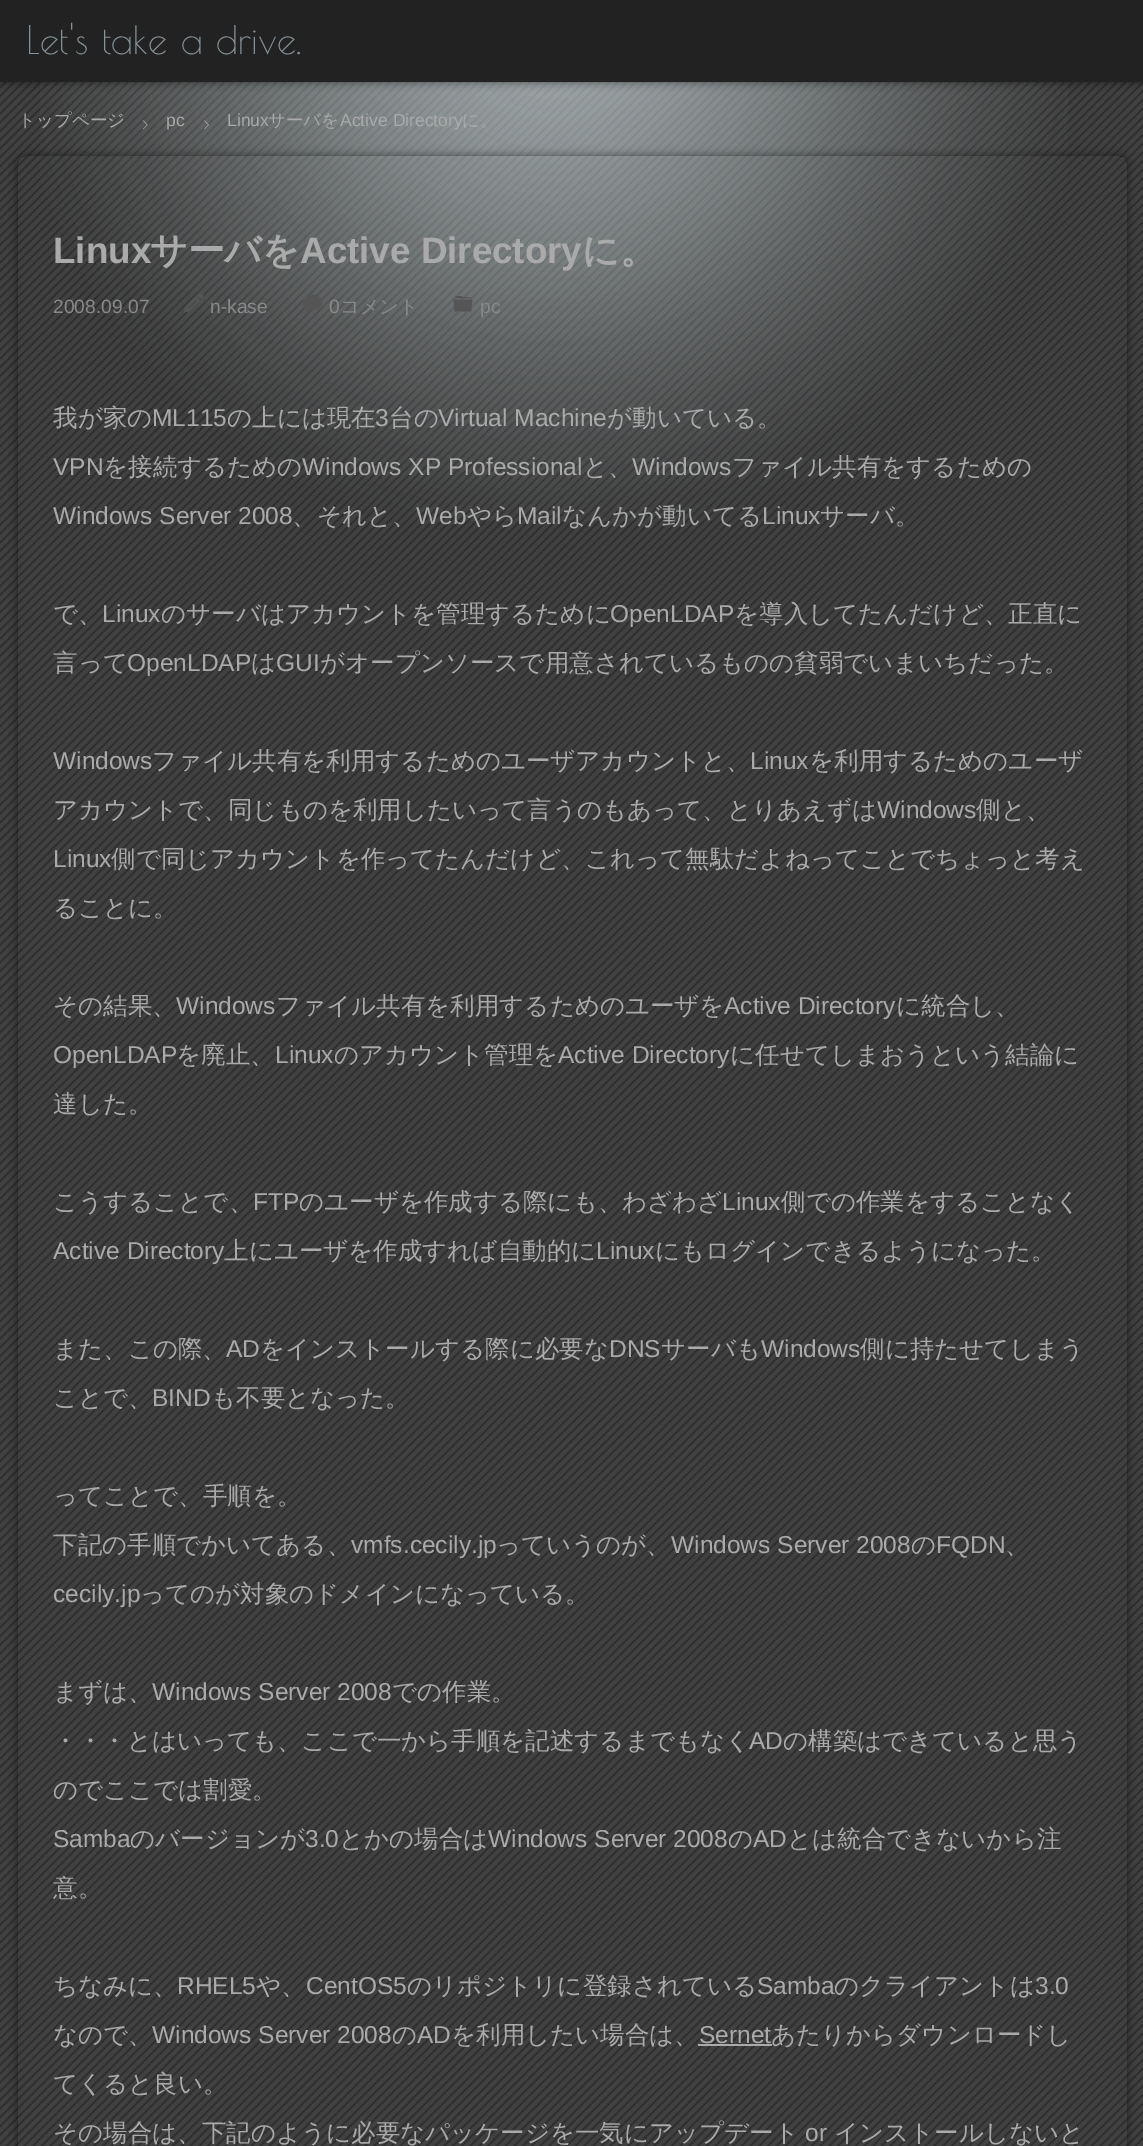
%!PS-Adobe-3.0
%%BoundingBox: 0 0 1143 2146
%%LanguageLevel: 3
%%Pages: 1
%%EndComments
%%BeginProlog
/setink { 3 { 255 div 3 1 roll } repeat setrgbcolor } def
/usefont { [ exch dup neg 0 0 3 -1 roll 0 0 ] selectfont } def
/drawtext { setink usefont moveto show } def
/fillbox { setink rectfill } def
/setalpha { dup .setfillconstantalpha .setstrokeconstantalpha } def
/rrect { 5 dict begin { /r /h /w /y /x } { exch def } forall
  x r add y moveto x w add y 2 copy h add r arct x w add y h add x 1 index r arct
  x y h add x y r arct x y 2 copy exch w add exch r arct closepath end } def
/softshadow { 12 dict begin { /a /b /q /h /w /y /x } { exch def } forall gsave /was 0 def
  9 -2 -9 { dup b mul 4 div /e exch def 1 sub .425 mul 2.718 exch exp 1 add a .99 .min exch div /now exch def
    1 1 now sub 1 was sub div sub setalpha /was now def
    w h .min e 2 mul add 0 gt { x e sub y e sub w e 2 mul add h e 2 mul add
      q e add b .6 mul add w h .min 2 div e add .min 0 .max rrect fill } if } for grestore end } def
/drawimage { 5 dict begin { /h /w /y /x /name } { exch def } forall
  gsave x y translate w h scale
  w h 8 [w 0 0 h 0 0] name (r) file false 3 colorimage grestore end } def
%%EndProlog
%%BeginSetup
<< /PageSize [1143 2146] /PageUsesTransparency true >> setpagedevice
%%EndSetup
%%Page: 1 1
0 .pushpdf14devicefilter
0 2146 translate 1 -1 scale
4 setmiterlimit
0 0 1143 2146 255 255 255 fillbox
(assets/img1.rgb) 0 82 1143 2064 drawimage
(assets/img2.rgb) 40 82 1028 439 drawimage
0 0 0 setink
0 0 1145 82 0 4.5 0.5 softshadow
0 0 1143 82 34 34 34 fillbox
(Let's take a drive.) 26 54 /PoiretOne-Regular 38.5 134 146 153 drawtext
(トップページ) 18 126 /WenQuanYiZenHei-Medium 17.5 170 170 170 drawtext
(assets/img3.rgb) 142 120 6 10 drawimage
(pc) 166 126 /LiberationSans-Regular 17.5 170 170 170 drawtext
(assets/img4.rgb) 204 120 5 10 drawimage
(Linux) 227 126 /LiberationSans-Regular 17.5 170 170 170 drawtext
(サーバを) 268 126 /WenQuanYiZenHei-Medium 17.5 170 170 170 drawtext
(Active Directory) 340 126 /LiberationSans-Regular 17.5 170 170 170 drawtext
(に。) 462 126 /WenQuanYiZenHei-Medium 17.5 170 170 170 drawtext
gsave
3 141 moveto 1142 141 lineto 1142 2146 lineto 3 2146 lineto closepath 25 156 moveto 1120 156 lineto 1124 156 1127 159 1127 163 curveto 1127 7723 lineto 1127 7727 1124 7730 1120 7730 curveto 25 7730 lineto 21 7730 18 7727 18 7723 curveto 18 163 lineto 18 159 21 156 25 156 curveto closepath eoclip newpath
0 0 0 setink
18 156 1109 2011 7 4.5 0.5 softshadow
grestore
(Linux) 53 263 /LiberationSans-Bold 36.75 170 170 170 drawtext
(サーバを) 150 263 /WenQuanYiZenHei-Bold 36.75 170 170 170 drawtext
(Active Directory) 300 263 /LiberationSans-Bold 36.75 170 170 170 drawtext
(に。) 582 263 /WenQuanYiZenHei-Bold 36.75 170 170 170 drawtext
(2008.09.07) 53 313 /LiberationSans-Regular 19.25 136 136 136 drawtext
(assets/img5.rgb) 184 294 19 19 drawimage
(n-kase) 210 313 /LiberationSans-Regular 19.25 136 136 136 drawtext
(assets/img6.rgb) 303 295 19 18 drawimage
(0) 329 313 /LiberationSans-Regular 19.25 136 136 136 drawtext
(コメント) 340 313 /WenQuanYiZenHei-Medium 19.25 136 136 136 drawtext
(assets/img7.rgb) 453 296 20 16 drawimage
(pc) 480 313 /LiberationSans-Regular 19.25 136 136 136 drawtext
(我が家の) 53 426 /WenQuanYiZenHei-Medium 24.5 170 170 170 drawtext
(ML115) 152 426 /LiberationSans-Regular 24.5 170 170 170 drawtext
(の上には現在) 227 426 /WenQuanYiZenHei-Medium 24.5 170 170 170 drawtext
(3) 375 426 /LiberationSans-Regular 24.5 170 170 170 drawtext
(台の) 389 426 /WenQuanYiZenHei-Medium 24.5 170 170 170 drawtext
(Virtual Machine) 438 426 /LiberationSans-Regular 24.5 170 170 170 drawtext
(が動いている。) 607 426 /WenQuanYiZenHei-Medium 24.5 170 170 170 drawtext
(VPN) 53 475 /LiberationSans-Regular 24.5 170 170 170 drawtext
(を接続するための) 103 475 /WenQuanYiZenHei-Medium 24.5 170 170 170 drawtext
(Windows XP Professional) 302 475 /LiberationSans-Regular 24.5 170 170 170 drawtext
(と、) 583 475 /WenQuanYiZenHei-Medium 24.5 170 170 170 drawtext
(Windows) 632 475 /LiberationSans-Regular 24.5 170 170 170 drawtext
(ファイル共有をするための) 732 475 /WenQuanYiZenHei-Medium 24.5 170 170 170 drawtext
(Windows Server 2008) 53 524 /LiberationSans-Regular 24.5 170 170 170 drawtext
(、それと、) 292 524 /WenQuanYiZenHei-Medium 24.5 170 170 170 drawtext
(Web) 416 524 /LiberationSans-Regular 24.5 170 170 170 drawtext
(やら) 467 524 /WenQuanYiZenHei-Medium 24.5 170 170 170 drawtext
(Mail) 517 524 /LiberationSans-Regular 24.5 170 170 170 drawtext
(なんかが動いてる) 562 524 /WenQuanYiZenHei-Medium 24.5 170 170 170 drawtext
(Linux) 762 524 /LiberationSans-Regular 24.5 170 170 170 drawtext
(サーバ。) 820 524 /WenQuanYiZenHei-Medium 24.5 170 170 170 drawtext
(で、) 53 622 /WenQuanYiZenHei-Medium 24.5 170 170 170 drawtext
(Linux) 102 622 /LiberationSans-Regular 24.5 170 170 170 drawtext
(のサーバはアカウントを管理するために) 161 622 /WenQuanYiZenHei-Medium 24.5 170 170 170 drawtext
(OpenLDAP) 610 622 /LiberationSans-Regular 24.5 170 170 170 drawtext
(を導入してたんだけど、正直に) 734 622 /WenQuanYiZenHei-Medium 24.5 170 170 170 drawtext
(言って) 53 671 /WenQuanYiZenHei-Medium 24.5 170 170 170 drawtext
(OpenLDAP) 127 671 /LiberationSans-Regular 24.5 170 170 170 drawtext
(は) 251 671 /WenQuanYiZenHei-Medium 24.5 170 170 170 drawtext
(GUI) 276 671 /LiberationSans-Regular 24.5 170 170 170 drawtext
(がオープンソースで用意されているものの貧弱でいまいちだった。) 320 671 /WenQuanYiZenHei-Medium 24.5 170 170 170 drawtext
(Windows) 53 769 /LiberationSans-Regular 24.5 170 170 170 drawtext
(ファイル共有を利用するためのユーザアカウントと、) 152 769 /WenQuanYiZenHei-Medium 24.5 170 170 170 drawtext
(Linux) 750 769 /LiberationSans-Regular 24.5 170 170 170 drawtext
(を利用するためのユーザ) 809 769 /WenQuanYiZenHei-Medium 24.5 170 170 170 drawtext
(アカウントで、同じものを利用したいって言うのもあって、とりあえずは) 53 818 /WenQuanYiZenHei-Medium 24.5 170 170 170 drawtext
(Windows) 877 818 /LiberationSans-Regular 24.5 170 170 170 drawtext
(側と、) 976 818 /WenQuanYiZenHei-Medium 24.5 170 170 170 drawtext
(Linux) 53 867 /LiberationSans-Regular 24.5 170 170 170 drawtext
(側で同じアカウントを作ってたんだけど、これって無駄だよねってことでちょっと考え) 111 867 /WenQuanYiZenHei-Medium 24.5 170 170 170 drawtext
(ることに。) 53 916 /WenQuanYiZenHei-Medium 24.5 170 170 170 drawtext
(その結果、) 53 1014 /WenQuanYiZenHei-Medium 24.5 170 170 170 drawtext
(Windows) 176 1014 /LiberationSans-Regular 24.5 170 170 170 drawtext
(ファイル共有を利用するためのユーザを) 276 1014 /WenQuanYiZenHei-Medium 24.5 170 170 170 drawtext
(Active Directory) 724 1014 /LiberationSans-Regular 24.5 170 170 170 drawtext
(に統合し、) 896 1014 /WenQuanYiZenHei-Medium 24.5 170 170 170 drawtext
(OpenLDAP) 53 1063 /LiberationSans-Regular 24.5 170 170 170 drawtext
(を廃止、) 176 1063 /WenQuanYiZenHei-Medium 24.5 170 170 170 drawtext
(Linux) 275 1063 /LiberationSans-Regular 24.5 170 170 170 drawtext
(のアカウント管理を) 334 1063 /WenQuanYiZenHei-Medium 24.5 170 170 170 drawtext
(Active Directory) 558 1063 /LiberationSans-Regular 24.5 170 170 170 drawtext
(に任せてしまおうという結論に) 730 1063 /WenQuanYiZenHei-Medium 24.5 170 170 170 drawtext
(達した。) 53 1112 /WenQuanYiZenHei-Medium 24.5 170 170 170 drawtext
(こうすることで、) 53 1210 /WenQuanYiZenHei-Medium 24.5 170 170 170 drawtext
(FTP) 253 1210 /LiberationSans-Regular 24.5 170 170 170 drawtext
(のユーザを作成する際にも、わざわざ) 299 1210 /WenQuanYiZenHei-Medium 24.5 170 170 170 drawtext
(Linux) 722 1210 /LiberationSans-Regular 24.5 170 170 170 drawtext
(側での作業をすることなく) 781 1210 /WenQuanYiZenHei-Medium 24.5 170 170 170 drawtext
(Active Directory) 53 1259 /LiberationSans-Regular 24.5 170 170 170 drawtext
(上にユーザを作成すれば自動的に) 224 1259 /WenQuanYiZenHei-Medium 24.5 170 170 170 drawtext
(Linux) 596 1259 /LiberationSans-Regular 24.5 170 170 170 drawtext
(にもログインできるようになった。) 655 1259 /WenQuanYiZenHei-Medium 24.5 170 170 170 drawtext
(また、この際、) 53 1357 /WenQuanYiZenHei-Medium 24.5 170 170 170 drawtext
(AD) 226 1357 /LiberationSans-Regular 24.5 170 170 170 drawtext
(をインストールする際に必要な) 260 1357 /WenQuanYiZenHei-Medium 24.5 170 170 170 drawtext
(DNS) 609 1357 /LiberationSans-Regular 24.5 170 170 170 drawtext
(サーバも) 661 1357 /WenQuanYiZenHei-Medium 24.5 170 170 170 drawtext
(Windows) 761 1357 /LiberationSans-Regular 24.5 170 170 170 drawtext
(側に持たせてしまう) 860 1357 /WenQuanYiZenHei-Medium 24.5 170 170 170 drawtext
(ことで、) 53 1406 /WenQuanYiZenHei-Medium 24.5 170 170 170 drawtext
(BIND) 152 1406 /LiberationSans-Regular 24.5 170 170 170 drawtext
(も不要となった。) 211 1406 /WenQuanYiZenHei-Medium 24.5 170 170 170 drawtext
(ってことで、手順を。) 53 1504 /WenQuanYiZenHei-Medium 24.5 170 170 170 drawtext
(下記の手順でかいてある、) 53 1553 /WenQuanYiZenHei-Medium 24.5 170 170 170 drawtext
(vmfs.cecily.jp) 351 1553 /LiberationSans-Regular 24.5 170 170 170 drawtext
(っていうのが、) 496 1553 /WenQuanYiZenHei-Medium 24.5 170 170 170 drawtext
(Windows Server 2008) 671 1553 /LiberationSans-Regular 24.5 170 170 170 drawtext
(の) 911 1553 /WenQuanYiZenHei-Medium 24.5 170 170 170 drawtext
(FQDN) 936 1553 /LiberationSans-Regular 24.5 170 170 170 drawtext
(、) 1005 1553 /WenQuanYiZenHei-Medium 24.5 170 170 170 drawtext
(cecily.jp) 53 1602 /LiberationSans-Regular 24.5 170 170 170 drawtext
(ってのが対象のドメインになっている。) 140 1602 /WenQuanYiZenHei-Medium 24.5 170 170 170 drawtext
(まずは、) 53 1700 /WenQuanYiZenHei-Medium 24.5 170 170 170 drawtext
(Windows Server 2008) 152 1700 /LiberationSans-Regular 24.5 170 170 170 drawtext
(での作業。) 392 1700 /WenQuanYiZenHei-Medium 24.5 170 170 170 drawtext
(・・・とはいっても、ここで一から手順を記述するまでもなく) 53 1749 /WenQuanYiZenHei-Medium 24.5 170 170 170 drawtext
(AD) 749 1749 /LiberationSans-Regular 24.5 170 170 170 drawtext
(の構築はできていると思う) 783 1749 /WenQuanYiZenHei-Medium 24.5 170 170 170 drawtext
(のでここでは割愛。) 53 1798 /WenQuanYiZenHei-Medium 24.5 170 170 170 drawtext
(Samba) 53 1847 /LiberationSans-Regular 24.5 170 170 170 drawtext
(のバージョンが) 130 1847 /WenQuanYiZenHei-Medium 24.5 170 170 170 drawtext
(3.0) 305 1847 /LiberationSans-Regular 24.5 170 170 170 drawtext
(とかの場合は) 339 1847 /WenQuanYiZenHei-Medium 24.5 170 170 170 drawtext
(Windows Server 2008) 488 1847 /LiberationSans-Regular 24.5 170 170 170 drawtext
(の) 728 1847 /WenQuanYiZenHei-Medium 24.5 170 170 170 drawtext
(AD) 753 1847 /LiberationSans-Regular 24.5 170 170 170 drawtext
(とは統合できないから注) 787 1847 /WenQuanYiZenHei-Medium 24.5 170 170 170 drawtext
(意。) 53 1896 /WenQuanYiZenHei-Medium 24.5 170 170 170 drawtext
(ちなみに、) 53 1994 /WenQuanYiZenHei-Medium 24.5 170 170 170 drawtext
(RHEL5) 177 1994 /LiberationSans-Regular 24.5 170 170 170 drawtext
(や、) 256 1994 /WenQuanYiZenHei-Medium 24.5 170 170 170 drawtext
(CentOS5) 306 1994 /LiberationSans-Regular 24.5 170 170 170 drawtext
(のリポジトリに登録されている) 407 1994 /WenQuanYiZenHei-Medium 24.5 170 170 170 drawtext
(Samba) 757 1994 /LiberationSans-Regular 24.5 170 170 170 drawtext
(のクライアントは) 834 1994 /WenQuanYiZenHei-Medium 24.5 170 170 170 drawtext
(3.0) 1035 1994 /LiberationSans-Regular 24.5 170 170 170 drawtext
(なので、) 53 2043 /WenQuanYiZenHei-Medium 24.5 170 170 170 drawtext
(Windows Server 2008) 152 2043 /LiberationSans-Regular 24.5 170 170 170 drawtext
(の) 392 2043 /WenQuanYiZenHei-Medium 24.5 170 170 170 drawtext
(AD) 417 2043 /LiberationSans-Regular 24.5 170 170 170 drawtext
(を利用したい場合は、) 451 2043 /WenQuanYiZenHei-Medium 24.5 170 170 170 drawtext
(Sernet) 699 2043 /LiberationSans-Regular 24.5 170 170 170 drawtext
698 2044 74 2 170 170 170 fillbox
(あたりからダウンロードし) 771 2043 /WenQuanYiZenHei-Medium 24.5 170 170 170 drawtext
(てくると良い。) 53 2092 /WenQuanYiZenHei-Medium 24.5 170 170 170 drawtext
(その場合は、下記のように必要なパッケージを一気にアップデート) 53 2141 /WenQuanYiZenHei-Medium 24.5 170 170 170 drawtext
(or) 805 2141 /LiberationSans-Regular 24.5 170 170 170 drawtext
(インストールしないと) 834 2141 /WenQuanYiZenHei-Medium 24.5 170 170 170 drawtext
.poppdf14devicefilter showpage
%%EOF
